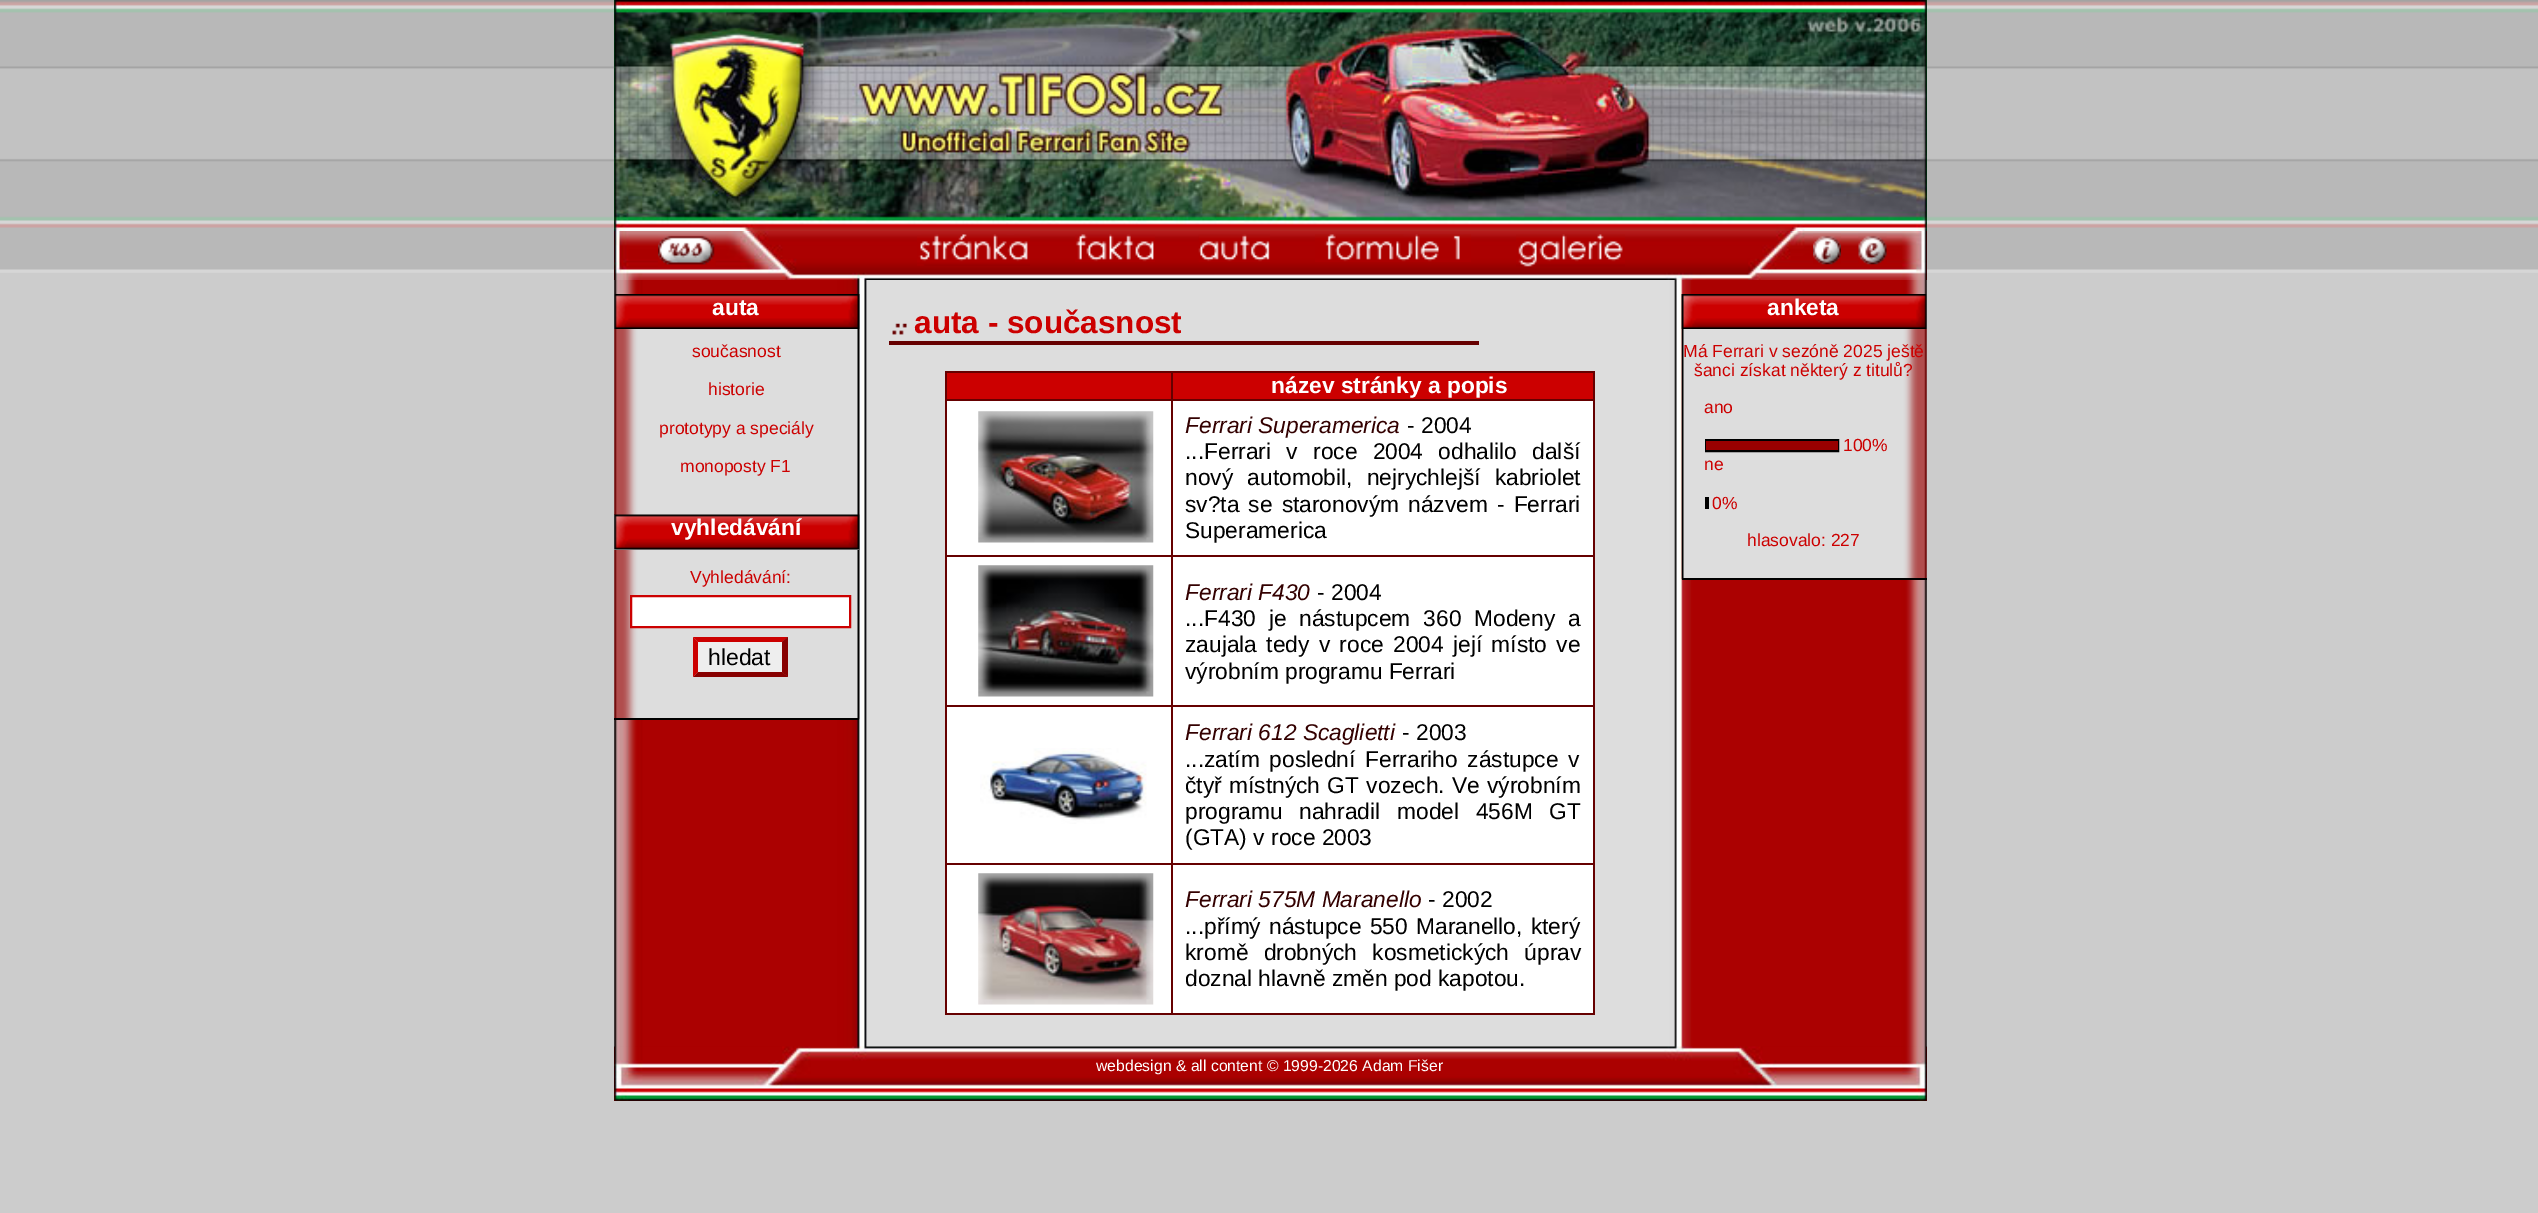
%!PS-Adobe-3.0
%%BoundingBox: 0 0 2538 1213
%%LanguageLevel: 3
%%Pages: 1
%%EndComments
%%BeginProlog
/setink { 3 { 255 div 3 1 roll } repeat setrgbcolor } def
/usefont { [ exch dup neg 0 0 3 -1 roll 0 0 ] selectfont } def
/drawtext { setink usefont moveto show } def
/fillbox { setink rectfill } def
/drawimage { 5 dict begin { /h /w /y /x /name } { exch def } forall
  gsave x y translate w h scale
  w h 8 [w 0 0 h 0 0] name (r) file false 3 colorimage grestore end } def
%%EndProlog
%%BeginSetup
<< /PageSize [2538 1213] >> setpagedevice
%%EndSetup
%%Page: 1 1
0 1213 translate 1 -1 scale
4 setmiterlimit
0 0 2538 1213 204 204 204 fillbox
(assets/img1.rgb) 0 0 2538 273 drawimage
(assets/img2.rgb) 614 0 1313 231 drawimage
(assets/img3.rgb) 614 231 1313 49 drawimage
(assets/img4.rgb) 658 235 58 32 drawimage
(assets/img5.rgb) 917 234 113 32 drawimage
(assets/img6.rgb) 1075 234 80 28 drawimage
(assets/img7.rgb) 1198 234 72 28 drawimage
(assets/img8.rgb) 1315 234 156 28 drawimage
(assets/img9.rgb) 1516 234 109 33 drawimage
(assets/img10.rgb) 1813 231 28 34 drawimage
(assets/img11.rgb) 1858 231 29 34 drawimage
(assets/img12.rgb) 614 280 1313 767 drawimage
(assets/img13.rgb) 614 294 246 426 drawimage
614 718 245 2 0 0 0 fillbox
(assets/img14.rgb) 614 294 246 35 drawimage
(auta) 712 315 /LiberationSans-Bold 22.75 255 255 255 drawtext
(současnost) 692 357 /LiberationSans-Regular 17.5 204 0 0 drawtext
(historie) 708 395 /LiberationSans-Regular 17.5 204 0 0 drawtext
(prototypy a speciály) 659 434 /LiberationSans-Regular 17.5 204 0 0 drawtext
(monoposty F1) 680 472 /LiberationSans-Regular 17.5 204 0 0 drawtext
614 515 245 35 204 204 204 fillbox
(assets/img15.rgb) 614 514 246 36 drawimage
(vyhledávání) 671 535 /LiberationSans-Bold 22.75 255 255 255 drawtext
(Vyhledávání:) 690 583 /LiberationSans-Regular 17.5 204 0 0 drawtext
255 255 255 setink
631 596 moveto 850 596 lineto 850 627 lineto 631 627 lineto closepath gsave fill grestore
204 0 0 setink
2 setlinewidth
stroke
693 637 95 40 238 238 238 fillbox
204 0 0 setink
693 637 moveto 788 637 lineto 782 642 lineto 698 642 lineto closepath fill
136 0 0 setink
788 637 moveto 788 677 lineto 782 672 lineto 782 642 lineto closepath fill
788 677 moveto 693 677 lineto 698 672 lineto 782 672 lineto closepath fill
204 0 0 setink
693 677 moveto 693 637 lineto 698 642 lineto 698 672 lineto closepath fill
(hledat) 708 665 /LiberationSans-Regular 23 0 0 0 drawtext
(assets/img16.rgb) 892 323 15 12 drawimage
889 341 590 4 102 0 0 fillbox
(auta - současnost) 914 333 /LiberationSans-Bold 31.5 204 0 0 drawtext
947 373 646 26 204 0 0 fillbox
1171 371 423 2 102 0 0 fillbox
1171 399 423 2 102 0 0 fillbox
947 401 646 612 255 255 255 fillbox
1171 555 423 2 102 0 0 fillbox
1171 705 423 2 102 0 0 fillbox
1171 863 423 2 102 0 0 fillbox
1593 863 2 152 102 0 0 fillbox
1171 1013 423 2 102 0 0 fillbox
1171 863 2 152 102 0 0 fillbox
945 863 228 2 102 0 0 fillbox
1171 705 2 160 102 0 0 fillbox
945 705 228 2 102 0 0 fillbox
1171 555 2 152 102 0 0 fillbox
945 555 228 2 102 0 0 fillbox
1171 399 2 158 102 0 0 fillbox
945 399 228 2 102 0 0 fillbox
1171 371 2 30 102 0 0 fillbox
945 371 228 2 102 0 0 fillbox
945 1013 228 2 102 0 0 fillbox
945 863 2 152 102 0 0 fillbox
945 705 2 160 102 0 0 fillbox
945 555 2 152 102 0 0 fillbox
945 399 2 158 102 0 0 fillbox
945 371 2 30 102 0 0 fillbox
1593 705 2 160 102 0 0 fillbox
1593 555 2 152 102 0 0 fillbox
1593 399 2 158 102 0 0 fillbox
1593 371 2 30 102 0 0 fillbox
(název stránky a popis) 1271 393 /LiberationSans-Bold 22.75 255 255 255 drawtext
(assets/img17.rgb) 978 411 176 132 drawimage
(Ferrari Superamerica) 1185 433 /LiberationSans-Italic 22.75 51 0 0 drawtext
(- 2004) 1407 433 /LiberationSans-Regular 22.75 0 0 0 drawtext
1185 459 moveto 9 0 32 (...Ferrari v roce 2004 odhalilo další) widthshow
1185 485 moveto 8 0 32 (nový automobil, nejrychlejší kabriolet) widthshow
1185 512 moveto 2.75 0 32 (sv?ta se staronovým názvem - Ferrari) widthshow
(Superamerica) 1185 538 /LiberationSans-Regular 22.75 0 0 0 drawtext
(assets/img18.rgb) 978 565 176 132 drawimage
(Ferrari F430) 1185 600 /LiberationSans-Italic 22.75 51 0 0 drawtext
(- 2004) 1317 600 /LiberationSans-Regular 22.75 0 0 0 drawtext
1185 626 moveto 6.5 0 32 (...F430 je nástupcem 360 Modeny a) widthshow
1185 652 moveto 3 0 32 (zaujala tedy v roce 2004 její místo ve) widthshow
(výrobním programu Ferrari) 1185 679 /LiberationSans-Regular 22.75 0 0 0 drawtext
(assets/img19.rgb) 980 748 167 76 drawimage
(Ferrari 612 Scaglietti) 1185 740 /LiberationSans-Italic 22.75 51 0 0 drawtext
(- 2003) 1402 740 /LiberationSans-Regular 22.75 0 0 0 drawtext
1185 767 moveto 3.5 0 32 (...zatím poslední Ferrariho zástupce v) widthshow
1185 793 moveto 1 0 32 (čtyř místných GT vozech. Ve výrobním) widthshow
1185 819 moveto 10.5 0 32 (programu nahradil model 456M GT) widthshow
(\(GTA\) v roce 2003) 1185 845 /LiberationSans-Regular 22.75 0 0 0 drawtext
(assets/img20.rgb) 978 873 176 132 drawimage
(Ferrari 575M Maranello) 1185 907 /LiberationSans-Italic 22.75 51 0 0 drawtext
(- 2002) 1428 907 /LiberationSans-Regular 22.75 0 0 0 drawtext
1185 934 moveto 2 0 32 (...přímý nástupce 550 Maranello, který) widthshow
1185 960 moveto 9 0 32 (kromě drobných kosmetických úprav) widthshow
(doznal hlavně změn pod kapotou.) 1185 986 /LiberationSans-Regular 22.75 0 0 0 drawtext
(assets/img21.rgb) 1681 294 246 286 drawimage
1682 578 245 2 0 0 0 fillbox
(assets/img22.rgb) 1681 294 246 35 drawimage
(anketa) 1767 315 /LiberationSans-Bold 22.75 255 255 255 drawtext
(Má Ferrari v sezóně 2025 ještě) 1683 357 /LiberationSans-Regular 17.5 204 0 0 drawtext
(šanci získat některý z titulů?) 1694 376 /LiberationSans-Regular 17.5 204 0 0 drawtext
(ano) 1704 413 /LiberationSans-Regular 17.5 204 0 0 drawtext
0 0 0 setink
1706 440 132 11 rectstroke
(100%) 1843 451 /LiberationSans-Regular 17.5 204 0 0 drawtext
1706 441 132 9 153 0 0 fillbox
(ne) 1704 470 /LiberationSans-Regular 17.5 204 0 0 drawtext
1705 497 4 12 0 0 0 fillbox
(0%) 1712 509 /LiberationSans-Regular 17.5 204 0 0 drawtext
(hlasovalo: 227) 1747 546 /LiberationSans-Regular 17.5 204 0 0 drawtext
614 1047 1313 54 153 0 0 fillbox
(assets/img23.rgb) 614 1046 1313 55 drawimage
(webdesign & all content © 1999-2026 Adam Fišer) 1096 1071 /LiberationSans-Regular 15.75 255 255 255 drawtext
showpage
%%EOF
